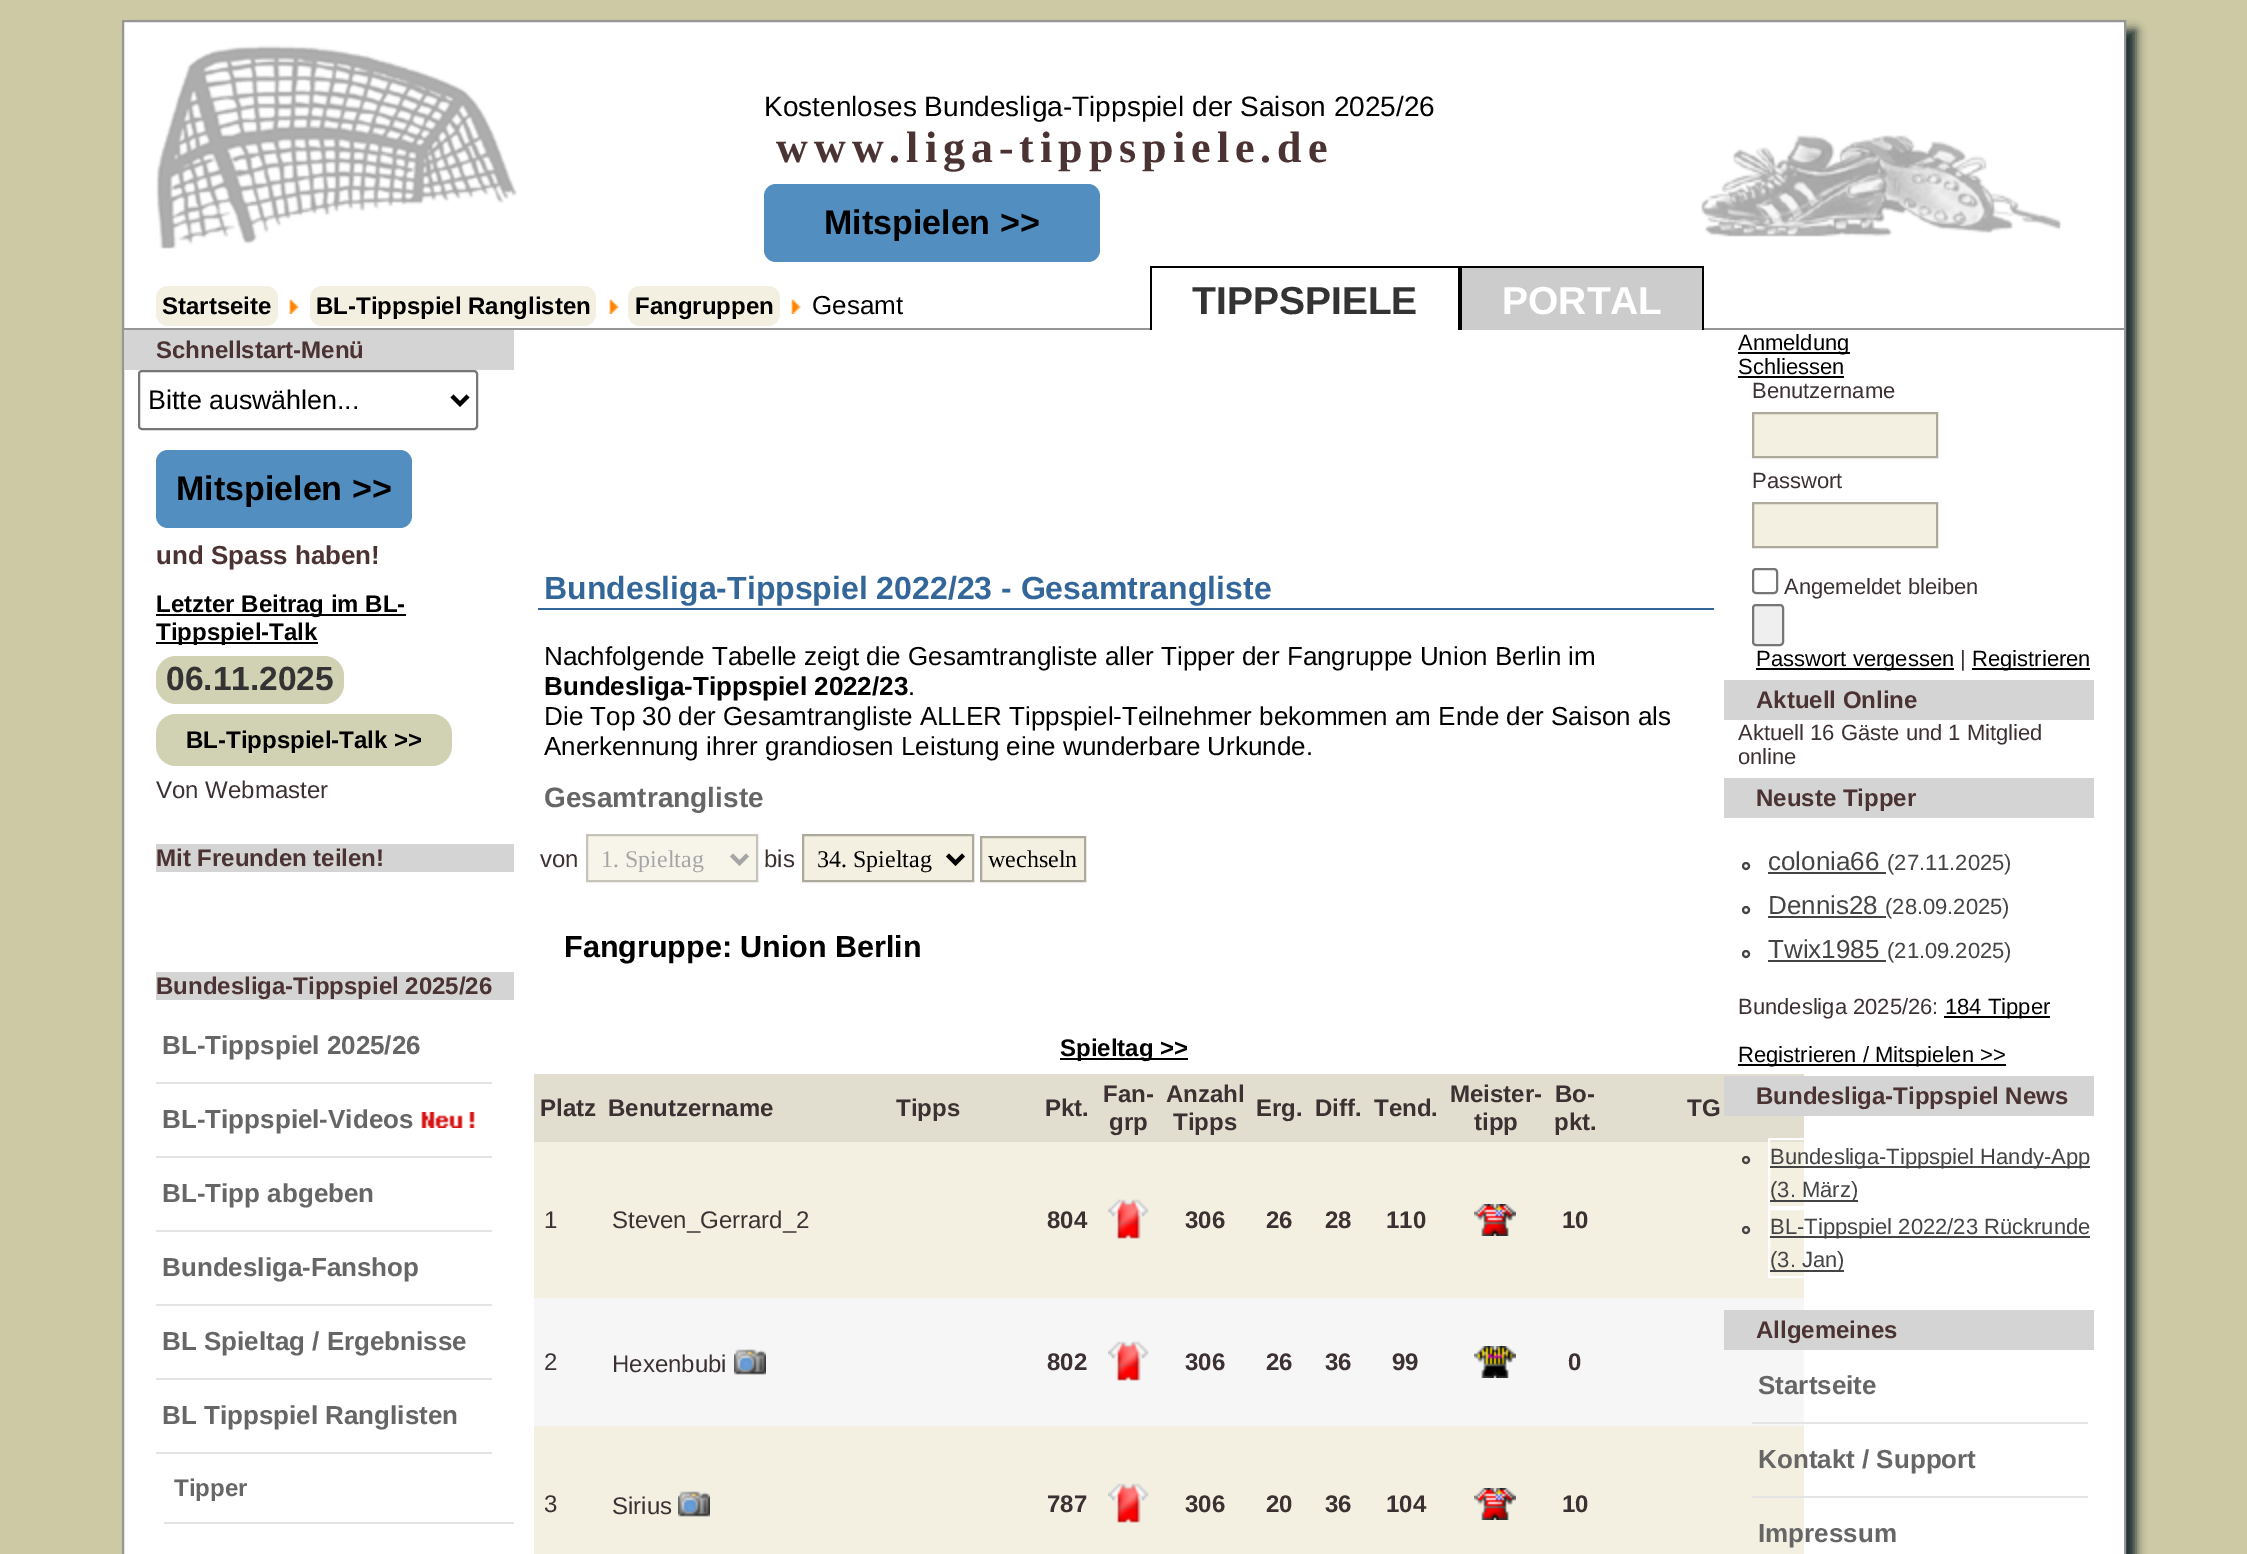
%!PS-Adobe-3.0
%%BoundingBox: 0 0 2247 1554
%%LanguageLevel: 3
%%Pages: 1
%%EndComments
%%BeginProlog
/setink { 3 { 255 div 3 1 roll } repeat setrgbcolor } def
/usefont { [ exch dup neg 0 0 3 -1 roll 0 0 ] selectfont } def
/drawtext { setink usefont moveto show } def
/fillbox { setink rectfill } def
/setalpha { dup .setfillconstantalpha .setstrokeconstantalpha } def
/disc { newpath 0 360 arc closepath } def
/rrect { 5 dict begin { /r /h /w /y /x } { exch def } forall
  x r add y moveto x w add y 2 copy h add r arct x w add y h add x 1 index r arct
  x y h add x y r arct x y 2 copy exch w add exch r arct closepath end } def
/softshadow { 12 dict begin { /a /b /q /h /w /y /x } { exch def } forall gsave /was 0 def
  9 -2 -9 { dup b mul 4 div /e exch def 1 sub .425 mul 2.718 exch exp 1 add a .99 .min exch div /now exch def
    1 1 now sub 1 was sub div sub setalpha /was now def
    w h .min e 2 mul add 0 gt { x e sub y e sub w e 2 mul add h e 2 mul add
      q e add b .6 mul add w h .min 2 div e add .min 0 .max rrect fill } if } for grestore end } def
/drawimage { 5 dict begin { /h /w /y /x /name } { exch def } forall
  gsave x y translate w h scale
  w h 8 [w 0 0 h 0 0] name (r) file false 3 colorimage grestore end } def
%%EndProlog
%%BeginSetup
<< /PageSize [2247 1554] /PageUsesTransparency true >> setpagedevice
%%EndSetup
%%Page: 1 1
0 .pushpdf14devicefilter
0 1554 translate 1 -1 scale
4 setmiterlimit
0 0 2247 1554 205 201 165 fillbox
24 42 46 setink
132 30 2004 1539 0 5 1 softshadow
255 255 255 setink
123 21 moveto 2125 21 lineto 2125 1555 lineto 123 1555 lineto closepath gsave fill grestore
150 150 150 setink
2 setlinewidth
stroke
(assets/img1.rgb) 156 45 1905 204 drawimage
124 328 2000 2 150 150 150 fillbox
(Kostenloses Bundesliga-Tippspiel der Saison 2025/26) 764 116 /LiberationSans-Regular 28 0 0 0 drawtext
/LiberationSerif-Bold 44 usefont
76 51 51 setink
776 162 moveto 6 0 (www.liga-tippspiele.de) ashow
83 142 193 setink
764 184 336 78 12 rrect fill
(Mitspielen >>) 824 234 /LiberationSans-Bold 34 0 0 0 drawtext
243 240 225 setink
156 286 122 40 12 rrect fill
(Startseite) 162 314 /LiberationSans-Bold 24 0 0 0 drawtext
(assets/img2.rgb) 289 299 10 15 drawimage
243 240 225 setink
310 286 286 40 12 rrect fill
(BL-Tippspiel Ranglisten) 316 314 /LiberationSans-Bold 24 0 0 0 drawtext
(assets/img2.rgb) 609 299 10 15 drawimage
243 240 225 setink
628 286 152 40 12 rrect fill
(Fangruppen) 635 314 /LiberationSans-Bold 24 0 0 0 drawtext
(assets/img2.rgb) 791 299 10 15 drawimage
(Gesamt) 812 314 /LiberationSans-Regular 26 0 0 0 drawtext
1152 328 306 2 255 255 255 fillbox
1150 266 554 2 0 0 0 fillbox
1458 266 4 64 0 0 0 fillbox
1150 266 2 64 0 0 0 fillbox
(TIPPSPIELE) 1192 314 /LiberationSans-Bold 39 51 51 51 drawtext
1462 268 240 62 204 204 204 fillbox
1702 266 2 64 0 0 0 fillbox
(PORTAL) 1502 314 /LiberationSans-Bold 39 255 255 255 drawtext
124 330 390 40 212 212 212 fillbox
(Schnellstart-Menü) 156 358 /LiberationSans-Bold 24 76 51 51 drawtext
118 118 118 setink
139 371 338 58 3 rrect stroke
0 0 0 setink
4 setlinewidth
452 396 moveto 460 404 lineto 468 396 lineto stroke
(Bitte auswählen...) 148 409 /LiberationSans-Regular 26.75 0 0 0 drawtext
83 142 193 setink
156 450 256 78 12 rrect fill
(Mitspielen >>) 176 500 /LiberationSans-Bold 34 0 0 0 drawtext
(und Spass haben!) 156 564 /LiberationSans-Bold 26 76 51 51 drawtext
156 614 250 2 0 0 0 fillbox
(Letzter Beitrag im BL-) 156 612 /LiberationSans-Bold 24 0 0 0 drawtext
156 642 162 2 0 0 0 fillbox
(Tippspiel-Talk) 156 640 /LiberationSans-Bold 24 0 0 0 drawtext
209 209 179 setink
156 656 188 48 20 rrect fill
(06.11.2025) 166 690 /LiberationSans-Bold 33.5 51 51 51 drawtext
209 209 179 setink
156 714 296 52 20 rrect fill
(BL-Tippspiel-Talk >>) 186 748 /LiberationSans-Bold 24 0 0 0 drawtext
(Von Webmaster) 156 798 /LiberationSans-Regular 24 60 48 50 drawtext
156 844 358 28 212 212 212 fillbox
(Mit Freunden teilen!) 156 866 /LiberationSans-Bold 24 76 51 51 drawtext
156 972 358 28 212 212 212 fillbox
(Bundesliga-Tippspiel 2025/26) 156 994 /LiberationSans-Bold 24 76 51 51 drawtext
156 1082 336 2 228 228 228 fillbox
(BL-Tippspiel 2025/26) 162 1054 /LiberationSans-Bold 26 102 102 102 drawtext
156 1156 336 2 228 228 228 fillbox
(BL-Tippspiel-Videos) 162 1128 /LiberationSans-Bold 26 102 102 102 drawtext
(assets/img3.rgb) 421 1112 54 16 drawimage
156 1230 336 2 228 228 228 fillbox
(BL-Tipp abgeben) 162 1202 /LiberationSans-Bold 26 102 102 102 drawtext
156 1304 336 2 228 228 228 fillbox
(Bundesliga-Fanshop) 162 1276 /LiberationSans-Bold 26 102 102 102 drawtext
156 1378 336 2 228 228 228 fillbox
(BL Spieltag / Ergebnisse) 162 1350 /LiberationSans-Bold 26 102 102 102 drawtext
156 1452 336 2 228 228 228 fillbox
(BL Tippspiel Ranglisten) 162 1424 /LiberationSans-Bold 26 102 102 102 drawtext
164 1522 350 2 228 228 228 fillbox
(Tipper) 174 1496 /LiberationSans-Bold 24 102 102 102 drawtext
538 608 1176 2 51 102 153 fillbox
(Bundesliga-Tippspiel 2022/23 - Gesamtrangliste) 544 599 /LiberationSans-Bold 32 51 102 153 drawtext
(Nachfolgende Tabelle zeigt die Gesamtrangliste aller Tipper der Fangruppe Union Berlin im) 544 665 /LiberationSans-Regular 26 0 0 0 drawtext
(Bundesliga-Tippspiel 2022/23) 544 695 /LiberationSans-Bold 26 0 0 0 drawtext
(.) 908 695 /LiberationSans-Regular 26 0 0 0 drawtext
(Die Top 30 der Gesamtrangliste ALLER Tippspiel-Teilnehmer bekommen am Ende der Saison als) 544 725 /LiberationSans-Regular 26 0 0 0 drawtext
(Anerkennung ihrer grandiosen Leistung eine wunderbare Urkunde.) 544 755 /LiberationSans-Regular 26 0 0 0 drawtext
(Gesamtrangliste) 544 807 /LiberationSans-Bold 28 102 102 102 drawtext
(von) 540 867 /LiberationSans-Regular 24 60 48 50 drawtext
247 245 234 setink
587 835 moveto 757 835 lineto 757 881 lineto 587 881 lineto closepath gsave fill grestore
198 196 186 setink
2 setlinewidth
stroke
166 166 166 setink
4 setlinewidth
731.5 855 moveto 739.5 863 lineto 747.5 855 lineto stroke
(1. Spieltag) 601 867 /LiberationSerif-Regular 24 166 166 166 drawtext
(bis) 764 867 /LiberationSans-Regular 24 60 48 50 drawtext
243 240 225 setink
803 835 moveto 973 835 lineto 973 881 lineto 803 881 lineto closepath gsave fill grestore
173 170 156 setink
2 setlinewidth
stroke
0 0 0 setink
4 setlinewidth
947.5 855 moveto 955.5 863 lineto 963.5 855 lineto stroke
(34. Spieltag) 817 867 /LiberationSerif-Regular 24 0 0 0 drawtext
243 240 225 setink
981 837 moveto 1085 837 lineto 1085 881 lineto 981 881 lineto closepath gsave fill grestore
173 170 156 setink
2 setlinewidth
stroke
(wechseln) 988 867 /LiberationSerif-Regular 24 0 0 0 drawtext
(Fangruppe: Union Berlin) 564 957 /LiberationSans-Bold 30.5 0 0 0 drawtext
1060 1058 128 2 0 0 0 fillbox
(Spieltag >>) 1060 1056 /LiberationSans-Bold 24 0 0 0 drawtext
534 1074 1270 68 225 222 207 fillbox
(Platz) 540 1116 /LiberationSans-Bold 24 60 48 50 drawtext
(Benutzername) 608 1116 /LiberationSans-Bold 24 60 48 50 drawtext
(Tipps) 896 1116 /LiberationSans-Bold 24 60 48 50 drawtext
(Pkt.) 1045 1116 /LiberationSans-Bold 24 60 48 50 drawtext
(Fan-) 1103 1102 /LiberationSans-Bold 24 60 48 50 drawtext
(grp) 1109 1130 /LiberationSans-Bold 24 60 48 50 drawtext
(Anzahl) 1166 1102 /LiberationSans-Bold 24 60 48 50 drawtext
(Tipps) 1173 1130 /LiberationSans-Bold 24 60 48 50 drawtext
(Erg.) 1256 1116 /LiberationSans-Bold 24 60 48 50 drawtext
(Diff.) 1315 1116 /LiberationSans-Bold 24 60 48 50 drawtext
(Tend.) 1374 1116 /LiberationSans-Bold 24 60 48 50 drawtext
(Meister-) 1450 1102 /LiberationSans-Bold 24 60 48 50 drawtext
(tipp) 1474 1130 /LiberationSans-Bold 24 60 48 50 drawtext
(Bo-) 1555 1102 /LiberationSans-Bold 24 60 48 50 drawtext
(pkt.) 1554 1130 /LiberationSans-Bold 24 60 48 50 drawtext
(TG) 1687 1116 /LiberationSans-Bold 24 60 48 50 drawtext
534 1142 1270 156 243 240 225 fillbox
(1) 544 1228 /LiberationSans-Regular 24 60 48 50 drawtext
(Steven_Gerrard_2) 612 1228 /LiberationSans-Regular 24 60 48 50 drawtext
(804) 1047 1228 /LiberationSans-Bold 24 60 48 50 drawtext
(assets/img4.rgb) 1108 1199 41 40 drawimage
(306) 1185 1228 /LiberationSans-Bold 24 60 48 50 drawtext
(26) 1266 1228 /LiberationSans-Bold 24 60 48 50 drawtext
(28) 1325 1228 /LiberationSans-Bold 24 60 48 50 drawtext
(110) 1386 1228 /LiberationSans-Bold 24 60 48 50 drawtext
(assets/img5.rgb) 1474 1204 42 32 drawimage
(10) 1562 1228 /LiberationSans-Bold 24 60 48 50 drawtext
534 1298 1270 128 246 246 246 fillbox
(2) 544 1370 /LiberationSans-Regular 24 60 48 50 drawtext
(Hexenbubi) 612 1372 /LiberationSans-Regular 24 60 48 50 drawtext
(assets/img6.rgb) 734 1349 32 26 drawimage
(802) 1047 1370 /LiberationSans-Bold 24 60 48 50 drawtext
(assets/img7.rgb) 1108 1341 41 40 drawimage
(306) 1185 1370 /LiberationSans-Bold 24 60 48 50 drawtext
(26) 1266 1370 /LiberationSans-Bold 24 60 48 50 drawtext
(36) 1325 1370 /LiberationSans-Bold 24 60 48 50 drawtext
(99) 1392 1370 /LiberationSans-Bold 24 60 48 50 drawtext
(assets/img8.rgb) 1474 1346 42 32 drawimage
(0) 1568 1370 /LiberationSans-Bold 24 60 48 50 drawtext
534 1426 1270 128 243 240 225 fillbox
(3) 544 1512 /LiberationSans-Regular 24 60 48 50 drawtext
(Sirius) 612 1514 /LiberationSans-Regular 24 60 48 50 drawtext
(assets/img9.rgb) 678 1491 32 26 drawimage
(787) 1047 1512 /LiberationSans-Bold 24 60 48 50 drawtext
(assets/img4.rgb) 1108 1483 41 40 drawimage
(306) 1185 1512 /LiberationSans-Bold 24 60 48 50 drawtext
(20) 1266 1512 /LiberationSans-Bold 24 60 48 50 drawtext
(36) 1325 1512 /LiberationSans-Bold 24 60 48 50 drawtext
(104) 1386 1512 /LiberationSans-Bold 24 60 48 50 drawtext
(assets/img5.rgb) 1474 1488 42 32 drawimage
(10) 1562 1512 /LiberationSans-Bold 24 60 48 50 drawtext
1738 352 112 2 0 0 0 fillbox
(Anmeldung) 1738 350 /LiberationSans-Regular 22 0 0 0 drawtext
(Schliessen) 1738 374 /LiberationSans-Regular 22 0 0 0 drawtext
1738 376 106 2 0 0 0 fillbox
(Benutzername) 1752 398 /LiberationSans-Regular 22 60 48 50 drawtext
243 240 225 setink
1753 413 moveto 1937 413 lineto 1937 457 lineto 1753 457 lineto closepath gsave fill grestore
173 170 156 setink
stroke
(Passwort) 1752 488 /LiberationSans-Regular 22 60 48 50 drawtext
243 240 225 setink
1753 503 moveto 1937 503 lineto 1937 547 lineto 1753 547 lineto closepath gsave fill grestore
173 170 156 setink
stroke
118 118 118 setink
1753 569 24 24 3 rrect stroke
(Angemeldet bleiben) 1784 594 /LiberationSans-Regular 22 60 48 50 drawtext
239 239 239 setink
1753 605 30 40 3 rrect gsave fill grestore
118 118 118 setink
stroke
1756 668 198 2 0 0 0 fillbox
(Passwort vergessen) 1756 666 /LiberationSans-Regular 22 0 0 0 drawtext
(|) 1960 666 /LiberationSans-Regular 22 60 48 50 drawtext
1972 668 118 2 0 0 0 fillbox
(Registrieren) 1972 666 /LiberationSans-Regular 22 0 0 0 drawtext
1724 680 370 40 212 212 212 fillbox
(Aktuell Online) 1756 708 /LiberationSans-Bold 24 76 51 51 drawtext
(Aktuell 16 Gäste und 1 Mitglied) 1738 740 /LiberationSans-Regular 22 60 48 50 drawtext
(online) 1738 764 /LiberationSans-Regular 22 60 48 50 drawtext
1724 778 370 40 212 212 212 fillbox
(Neuste Tipper) 1756 806 /LiberationSans-Bold 24 76 51 51 drawtext
68 68 68 setink
1746 866 3 disc stroke
(colonia66) 1768 870 /LiberationSans-Regular 26 68 68 68 drawtext
1768 872 118 2 68 68 68 fillbox
(\(27.11.2025\)) 1887 870 /LiberationSans-Regular 22 68 68 68 drawtext
1746 910 3 disc stroke
(Dennis28) 1768 914 /LiberationSans-Regular 26 68 68 68 drawtext
1768 916 118 2 68 68 68 fillbox
(\(28.09.2025\)) 1885 914 /LiberationSans-Regular 22 68 68 68 drawtext
1746 954 3 disc stroke
(Twix1985) 1768 958 /LiberationSans-Regular 26 68 68 68 drawtext
1768 960 118 2 68 68 68 fillbox
(\(21.09.2025\)) 1887 958 /LiberationSans-Regular 22 68 68 68 drawtext
(Bundesliga 2025/26:) 1738 1014 /LiberationSans-Regular 22 60 48 50 drawtext
1944 1016 106 2 0 0 0 fillbox
(184 Tipper) 1945 1014 /LiberationSans-Regular 22 0 0 0 drawtext
1738 1064 268 2 0 0 0 fillbox
(Registrieren / Mitspielen >>) 1738 1062 /LiberationSans-Regular 22 0 0 0 drawtext
1724 1076 370 40 212 212 212 fillbox
(Bundesliga-Tippspiel News) 1756 1104 /LiberationSans-Bold 24 76 51 51 drawtext
255 255 255 setink
1769 1139 324 68 rectstroke
68 68 68 setink
1746 1160 3 disc stroke
1770 1166 320 2 68 68 68 fillbox
(Bundesliga-Tippspiel Handy-App) 1770 1164 /LiberationSans-Regular 22 68 68 68 drawtext
1770 1200 88 2 68 68 68 fillbox
(\(3. März\)) 1770 1197 /LiberationSans-Regular 22 68 68 68 drawtext
255 255 255 setink
1769 1209 324 68 rectstroke
68 68 68 setink
1746 1230 3 disc stroke
1770 1236 320 2 68 68 68 fillbox
(BL-Tippspiel 2022/23 Rückrunde) 1770 1234 /LiberationSans-Regular 22 68 68 68 drawtext
1770 1270 74 2 68 68 68 fillbox
(\(3. Jan\)) 1770 1267 /LiberationSans-Regular 22 68 68 68 drawtext
1724 1310 370 40 212 212 212 fillbox
(Allgemeines) 1756 1338 /LiberationSans-Bold 24 76 51 51 drawtext
1752 1422 336 2 228 228 228 fillbox
(Startseite) 1758 1394 /LiberationSans-Bold 26 102 102 102 drawtext
1752 1496 336 2 228 228 228 fillbox
(Kontakt / Support) 1758 1468 /LiberationSans-Bold 26 102 102 102 drawtext
(Impressum) 1758 1542 /LiberationSans-Bold 26 102 102 102 drawtext
.poppdf14devicefilter showpage
%%EOF
